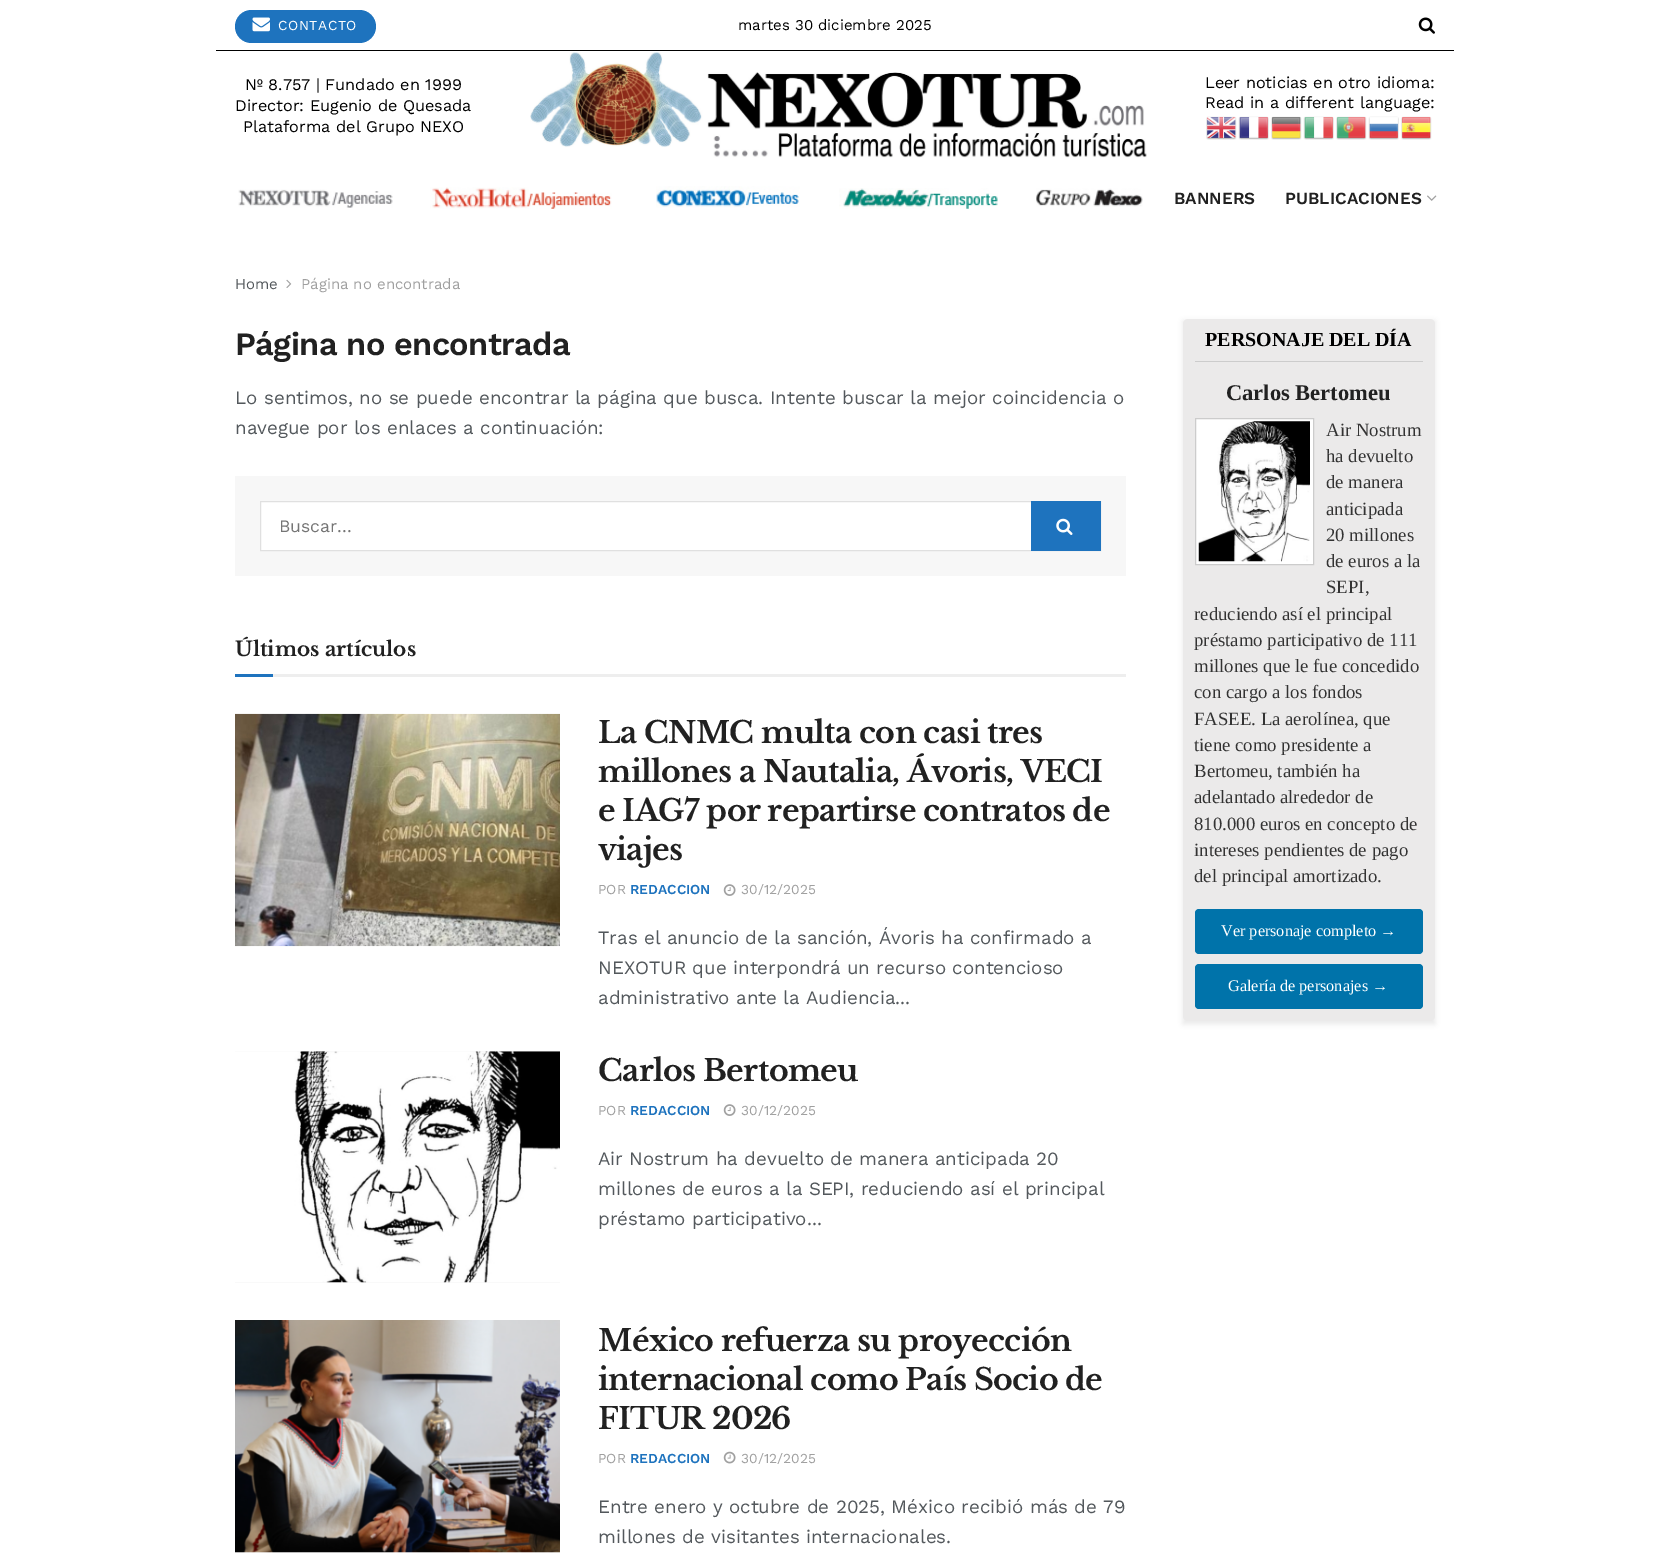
%!PS-Adobe-3.0
%%BoundingBox: 0 0 1669 1553
%%LanguageLevel: 3
%%Pages: 1
%%EndComments
%%BeginProlog
/setink { 3 { 255 div 3 1 roll } repeat setrgbcolor } def
/usefont { [ exch dup neg 0 0 3 -1 roll 0 0 ] selectfont } def
/drawtext { setink usefont moveto show } def
/fillbox { setink rectfill } def
/setalpha { dup .setfillconstantalpha .setstrokeconstantalpha } def
/rrect { 5 dict begin { /r /h /w /y /x } { exch def } forall
  x r add y moveto x w add y 2 copy h add r arct x w add y h add x 1 index r arct
  x y h add x y r arct x y 2 copy exch w add exch r arct closepath end } def
/softshadow { 12 dict begin { /a /b /q /h /w /y /x } { exch def } forall gsave /was 0 def
  9 -2 -9 { dup b mul 4 div /e exch def 1 sub .425 mul 2.718 exch exp 1 add a .99 .min exch div /now exch def
    1 1 now sub 1 was sub div sub setalpha /was now def
    w h .min e 2 mul add 0 gt { x e sub y e sub w e 2 mul add h e 2 mul add
      q e add b .6 mul add w h .min 2 div e add .min 0 .max rrect fill } if } for grestore end } def
/drawimage { 5 dict begin { /h /w /y /x /name } { exch def } forall
  gsave x y translate w h scale
  w h 8 [w 0 0 h 0 0] name (r) file false 3 colorimage grestore end } def
%%EndProlog
%%BeginSetup
<< /PageSize [1669 1553] /PageUsesTransparency true >> setpagedevice
%%EndSetup
%%Page: 1 1
0 .pushpdf14devicefilter
0 1553 translate 1 -1 scale
4 setmiterlimit
0 0 1669 1553 255 255 255 fillbox
216 50 1238 1 0 0 0 fillbox
30 115 190 setink
235 10 141 33 16.5 rrect fill
(assets/img1.rgb) 252 17 18 15 drawimage
/WorkSans-Regular 13.75 usefont
255 255 255 setink
278 30 moveto 0.5 0 (CONTACTO) ashow
(martes 30 diciembre 2025) 738 30 /WorkSans-Regular 15 0 0 0 drawtext
(assets/img2.rgb) 1418 17 17 17 drawimage
(Nº 8.757 | Fundado en 1999) 245 90 /WorkSans-Regular 16.25 0 0 0 drawtext
(Director: Eugenio de Quesada) 235 111 /WorkSans-Regular 16.25 0 0 0 drawtext
(Plataforma del Grupo NEXO) 243 132 /WorkSans-Regular 16.25 0 0 0 drawtext
(assets/img3.rgb) 530 52 617 106 drawimage
(Leer noticias en otro idioma:) 1205 88 /WorkSans-Regular 16.25 0 0 0 drawtext
(Read in a different language:) 1205 108 /WorkSans-Regular 16.25 0 0 0 drawtext
(assets/img4.rgb) 1206 116 31 24 drawimage
(assets/img5.rgb) 1238 116 31 24 drawimage
(assets/img6.rgb) 1271 116 31 24 drawimage
(assets/img7.rgb) 1303 116 31 24 drawimage
(assets/img8.rgb) 1336 116 31 24 drawimage
(assets/img9.rgb) 1368 116 31 24 drawimage
(assets/img10.rgb) 1401 116 31 24 drawimage
(assets/img11.rgb) 238 189 155 19 drawimage
(assets/img12.rgb) 430 187 182 22 drawimage
(assets/img13.rgb) 656 186 144 22 drawimage
(assets/img14.rgb) 839 188 159 21 drawimage
(assets/img15.rgb) 1036 188 107 19 drawimage
(BANNERS) 1174 204 /WorkSans-SemiBold 17 33 33 33 drawtext
(PUBLICACIONES) 1285 204 /WorkSans-SemiBold 17 33 33 33 drawtext
(assets/img16.rgb) 1427 195 10 6 drawimage
(Home) 235 289 /WorkSans-Regular 15 83 88 92 drawtext
(assets/img17.rgb) 286 279 6 9 drawimage
(Página no encontrada) 301 289 /WorkSans-Regular 15 160 160 160 drawtext
/WorkSans-SemiBold 32.5 usefont
33 33 33 setink
235 355 moveto -0.6 0 (Página no encontrada) ashow
(Lo sentimos, no se puede encontrar la página que busca. Intente buscar la mejor coincidencia o) 235 404 /WorkSans-Regular 18.75 83 88 92 drawtext
(navegue por los enlaces a continuación:) 235 434 /WorkSans-Regular 18.75 83 88 92 drawtext
235 476 891 100 247 247 247 fillbox
261 502 770 48 255 255 255 fillbox
224 224 224 setink
260.5 501.5 840 49 rectstroke
(Buscar...) 279 532 /WorkSans-Regular 17.5 117 117 117 drawtext
1031 501 70 50 30 115 190 fillbox
(assets/img18.rgb) 1056 518 17 17 drawimage
273 674 853 3 238 238 238 fillbox
(Últimos artículos) 235 656 /LibreBaskerville-Bold 20 33 33 33 drawtext
235 674 38 3 30 115 190 fillbox
(assets/img19.rgb) 235 713 325 234 drawimage
/LibreBaskerville-Bold 30 usefont
33 33 33 setink
598 743 moveto -0.6 0 (La CNMC multa con casi tres) ashow
598 782 moveto -0.6 0 (millones a Nautalia, Ávoris, VECI) ashow
598 821 moveto -0.6 0 (e IAG7 por repartirse contratos de) ashow
598 860 moveto -0.6 0 (viajes) ashow
(POR) 598 894 /WorkSans-Regular 13.75 160 160 160 drawtext
(REDACCION) 630 894 /WorkSans-SemiBold 13.75 30 115 190 drawtext
(assets/img20.rgb) 723 884 13 12 drawimage
(30/12/2025) 741 894 /WorkSans-Regular 13.75 160 160 160 drawtext
(Tras el anuncio de la sanción, Ávoris ha confirmado a) 598 944 /WorkSans-Regular 18.75 83 88 92 drawtext
(NEXOTUR que interpondrá un recurso contencioso) 598 974 /WorkSans-Regular 18.75 83 88 92 drawtext
(administrativo ante la Audiencia...) 598 1004 /WorkSans-Regular 18.75 83 88 92 drawtext
235 1051 325 232 247 247 247 fillbox
(assets/img21.rgb) 235 1051 325 232 drawimage
/LibreBaskerville-Bold 30 usefont
33 33 33 setink
598 1081 moveto -0.6 0 (Carlos Bertomeu) ashow
(POR) 598 1115 /WorkSans-Regular 13.75 160 160 160 drawtext
(REDACCION) 630 1115 /WorkSans-SemiBold 13.75 30 115 190 drawtext
(assets/img20.rgb) 723 1104 13 12 drawimage
(30/12/2025) 741 1115 /WorkSans-Regular 13.75 160 160 160 drawtext
(Air Nostrum ha devuelto de manera anticipada 20) 598 1165 /WorkSans-Regular 18.75 83 88 92 drawtext
(millones de euros a la SEPI, reduciendo así el principal) 598 1195 /WorkSans-Regular 18.75 83 88 92 drawtext
(préstamo participativo...) 598 1225 /WorkSans-Regular 18.75 83 88 92 drawtext
235 1552 325 1 247 247 247 fillbox
(assets/img22.rgb) 235 1320 325 233 drawimage
/LibreBaskerville-Bold 30 usefont
33 33 33 setink
598 1351 moveto -0.6 0 (México refuerza su proyección) ashow
598 1390 moveto -0.6 0 (internacional como País Socio de) ashow
598 1429 moveto -0.6 0 (FITUR 2026) ashow
(POR) 598 1463 /WorkSans-Regular 13.75 160 160 160 drawtext
(REDACCION) 630 1463 /WorkSans-SemiBold 13.75 30 115 190 drawtext
(assets/img23.rgb) 723 1451 13 13 drawimage
(30/12/2025) 741 1463 /WorkSans-Regular 13.75 160 160 160 drawtext
(Entre enero y octubre de 2025, México recibió más de 79) 598 1513 /WorkSans-Regular 18.75 83 88 92 drawtext
(millones de visitantes internacionales.) 598 1543 /WorkSans-Regular 18.75 83 88 92 drawtext
0 0 0 setink
1183 321 252 703 0 2.5 0.08 softshadow
235 234 234 setink
1183 319 252 702 5 rrect fill
1195 361 228 1 204 204 204 fillbox
(PERSONAJE DEL DÍA) 1205 346 /LiberationSerif-Bold 20 0 0 0 drawtext
(Carlos Bertomeu) 1226 400 /LiberationSerif-Bold 22.5 33 33 33 drawtext
255 255 255 setink
1195.5 418.5 moveto 1313.5 418.5 lineto 1313.5 564.5 lineto 1195.5 564.5 lineto closepath gsave fill grestore
204 204 204 setink
stroke
(assets/img24.rgb) 1198 421 112 141 drawimage
(Air Nostrum) 1326 436 /LiberationSerif-Regular 18.75 51 51 51 drawtext
(ha devuelto) 1326 462 /LiberationSerif-Regular 18.75 51 51 51 drawtext
(de manera) 1326 488 /LiberationSerif-Regular 18.75 51 51 51 drawtext
(anticipada) 1326 515 /LiberationSerif-Regular 18.75 51 51 51 drawtext
(20 millones) 1326 541 /LiberationSerif-Regular 18.75 51 51 51 drawtext
(de euros a la) 1326 567 /LiberationSerif-Regular 18.75 51 51 51 drawtext
(SEPI,) 1326 593 /LiberationSerif-Regular 18.75 51 51 51 drawtext
(reduciendo así el principal) 1194 620 /LiberationSerif-Regular 18.75 51 51 51 drawtext
(préstamo participativo de 111) 1194 646 /LiberationSerif-Regular 18.75 51 51 51 drawtext
(millones que le fue concedido) 1194 672 /LiberationSerif-Regular 18.75 51 51 51 drawtext
(con cargo a los fondos) 1194 698 /LiberationSerif-Regular 18.75 51 51 51 drawtext
(FASEE. La aerolínea, que) 1194 725 /LiberationSerif-Regular 18.75 51 51 51 drawtext
(tiene como presidente a) 1194 751 /LiberationSerif-Regular 18.75 51 51 51 drawtext
(Bertomeu, también ha) 1194 777 /LiberationSerif-Regular 18.75 51 51 51 drawtext
(adelantado alrededor de) 1194 803 /LiberationSerif-Regular 18.75 51 51 51 drawtext
(810.000 euros en concepto de) 1194 830 /LiberationSerif-Regular 18.75 51 51 51 drawtext
(intereses pendientes de pago) 1194 856 /LiberationSerif-Regular 18.75 51 51 51 drawtext
(del principal amortizado.) 1194 882 /LiberationSerif-Regular 18.75 51 51 51 drawtext
0 115 170 setink
1195 909 228 45 4 rrect fill
(Ver personaje completo →) 1221 936 /LiberationSerif-Regular 16.25 255 255 255 drawtext
0 115 170 setink
1195 964 228 45 4 rrect fill
(Galería de personajes →) 1228 991 /LiberationSerif-Regular 16.25 255 255 255 drawtext
.poppdf14devicefilter showpage
%%EOF
